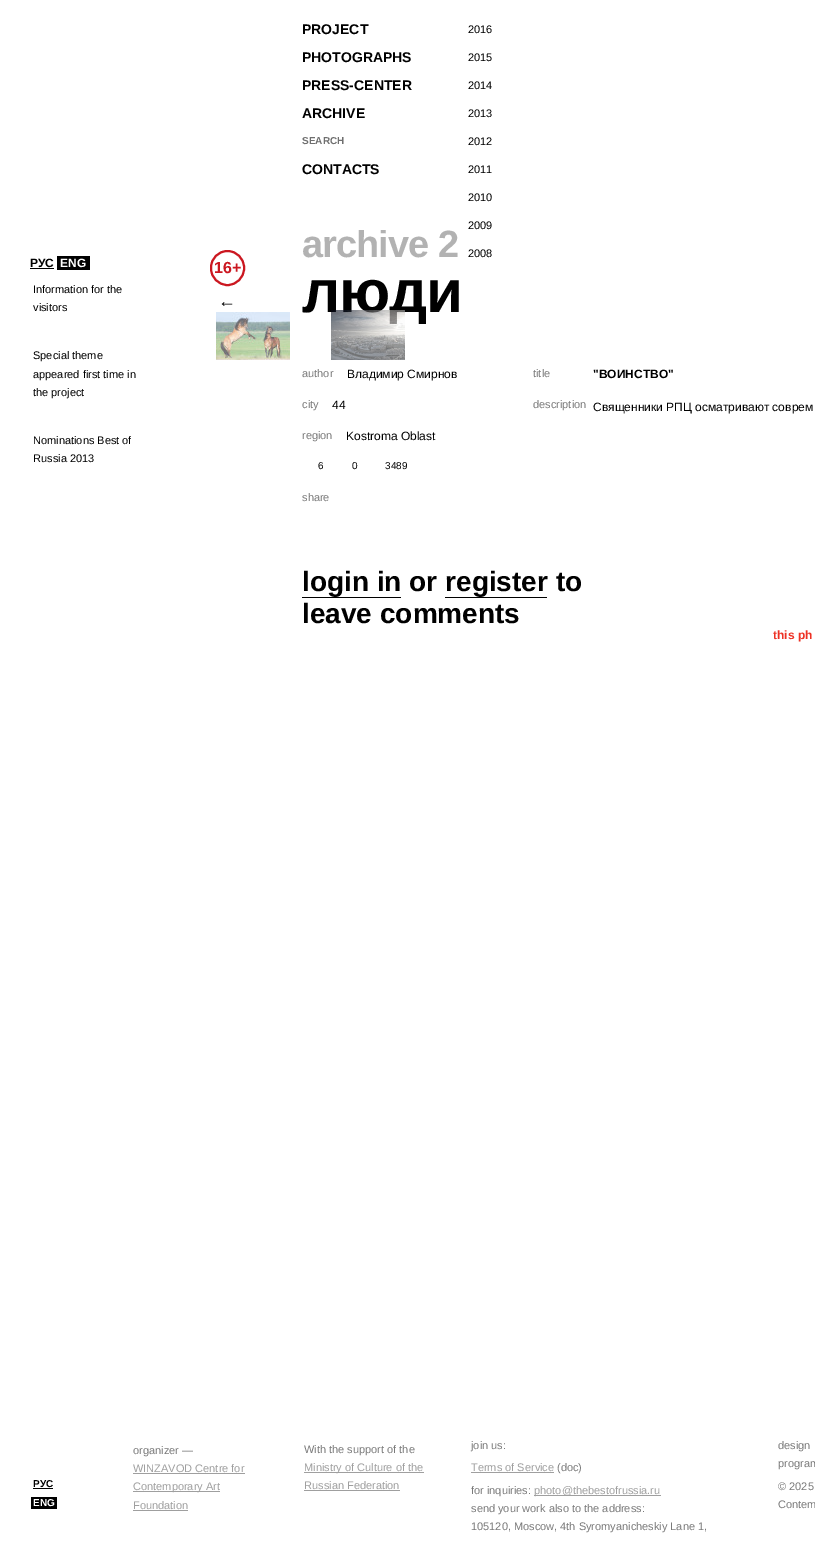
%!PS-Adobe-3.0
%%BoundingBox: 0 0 815 1541
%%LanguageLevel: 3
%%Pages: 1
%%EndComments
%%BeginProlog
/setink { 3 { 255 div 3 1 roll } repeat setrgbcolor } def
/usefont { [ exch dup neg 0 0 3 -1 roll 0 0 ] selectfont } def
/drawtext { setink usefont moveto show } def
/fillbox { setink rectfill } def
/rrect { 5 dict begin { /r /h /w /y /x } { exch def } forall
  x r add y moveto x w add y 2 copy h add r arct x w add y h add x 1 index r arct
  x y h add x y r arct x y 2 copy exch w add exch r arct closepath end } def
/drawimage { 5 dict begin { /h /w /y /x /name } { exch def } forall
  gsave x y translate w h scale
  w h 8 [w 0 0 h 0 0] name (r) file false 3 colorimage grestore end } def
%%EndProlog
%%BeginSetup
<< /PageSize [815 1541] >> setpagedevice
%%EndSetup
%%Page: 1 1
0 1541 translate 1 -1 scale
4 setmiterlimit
0 0 815 1541 255 255 255 fillbox
(PROJECT) 302 34 /LiberationSans-Bold 14 0 0 0 drawtext
(ARCHIVE) 302 118 /LiberationSans-Bold 14 0 0 0 drawtext
(2016) 468 33 /LiberationSans-Regular 11 0 0 0 drawtext
(2015) 468 61 /LiberationSans-Regular 11 0 0 0 drawtext
(2014) 468 89 /LiberationSans-Regular 11 0 0 0 drawtext
(2013) 468 117 /LiberationSans-Regular 11 0 0 0 drawtext
(2012) 468 145 /LiberationSans-Regular 11 0 0 0 drawtext
(2011) 468 173 /LiberationSans-Regular 11 0 0 0 drawtext
(2010) 468 201 /LiberationSans-Regular 11 0 0 0 drawtext
(2009) 468 229 /LiberationSans-Regular 11 0 0 0 drawtext
(2008) 468 257 /LiberationSans-Regular 11 0 0 0 drawtext
(PHOTOGRAPHS) 302 62 /LiberationSans-Bold 14 0 0 0 drawtext
(PRESS-CENTER) 302 90 /LiberationSans-Bold 14 0 0 0 drawtext
(SEARCH) 302 144 /LiberationSans-Bold 10 111 111 111 drawtext
(CONTACTS) 302 174 /LiberationSans-Bold 14 0 0 0 drawtext
(РУС) 30 267 /LiberationSans-Bold 12 0 0 0 drawtext
30 268 24 1 0 0 0 fillbox
57 256 33 14 0 0 0 fillbox
(ENG) 60 267 /LiberationSans-Bold 12 255 255 255 drawtext
203 23 32 setink
2 setlinewidth
211 251 33 34 16.5 rrect stroke
(16+) 214 273 /LiberationSans-Bold 16 203 23 32 drawtext
(Information for the) 33 293 /LiberationSans-Regular 11 0 0 0 drawtext
(visitors) 33 311 /LiberationSans-Regular 11 0 0 0 drawtext
(Special theme) 33 359 /LiberationSans-Regular 11 0 0 0 drawtext
(appeared first time in) 33 378 /LiberationSans-Regular 11 0 0 0 drawtext
(the project) 33 396 /LiberationSans-Regular 11 0 0 0 drawtext
(Nominations Best of) 33 444 /LiberationSans-Regular 11 0 0 0 drawtext
(Russia 2013) 33 462 /LiberationSans-Regular 11 0 0 0 drawtext
gsave
216 230 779 531 rectclip
/LiberationSans-Bold 38 usefont
178 178 178 setink
302 257 moveto -1 0 (archive 2) ashow
grestore
/LiberationSans-Bold 60 usefont
302 312 moveto -1 0 (люди) ashow
(←) 218 307 /LiberationSans-Regular 18 0 0 0 drawtext
(assets/img1.rgb) 216 312 74 48 drawimage
(assets/img2.rgb) 331 310 74 50 drawimage
(author) 302 377 /LiberationSans-Regular 11 122 122 122 drawtext
(Владимир Смирнов) 347 378 /LiberationSans-Regular 12 0 0 0 drawtext
(city) 302 408 /LiberationSans-Regular 11 122 122 122 drawtext
(44) 332 409 /LiberationSans-Regular 12 0 0 0 drawtext
(region) 302 439 /LiberationSans-Regular 11 122 122 122 drawtext
(Kostroma Oblast) 346 440 /LiberationSans-Regular 12 0 0 0 drawtext
(6) 318 469 /LiberationSans-Regular 10 0 0 0 drawtext
(0) 352 469 /LiberationSans-Regular 10 0 0 0 drawtext
(3489) 385 469 /LiberationSans-Regular 10 0 0 0 drawtext
(share) 302 501 /LiberationSans-Regular 11 122 122 122 drawtext
(title) 533 377 /LiberationSans-Regular 11 122 122 122 drawtext
("ВОИНСТВО") 593 378 /LiberationSans-Bold 12 0 0 0 drawtext
(description) 533 408 /LiberationSans-Regular 11 122 122 122 drawtext
(Священники РПЦ осматривают соврем) 593 411 /LiberationSans-Regular 12 0 0 0 drawtext
(login in or register to) 302 591 /LiberationSans-Bold 28 0 0 0 drawtext
302 597 99 1 0 0 0 fillbox
445 597 102 1 0 0 0 fillbox
(leave comments) 302 623 /LiberationSans-Bold 28 0 0 0 drawtext
(this ph) 773 639 /LiberationSans-Bold 12 238 49 36 drawtext
(РУС) 33 1487 /LiberationSans-Bold 10 0 0 0 drawtext
33 1488 20 1 0 0 0 fillbox
31 1497 26 12 0 0 0 fillbox
(ENG) 33 1506 /LiberationSans-Bold 10 255 255 255 drawtext
(organizer —) 133 1454 /LiberationSans-Regular 11 122 122 122 drawtext
(WINZAVOD Centre for) 133 1472 /LiberationSans-Regular 11 159 159 159 drawtext
133 1473 112 1 159 159 159 fillbox
133 1491 87 1 159 159 159 fillbox
(Contemporary Art) 133 1490 /LiberationSans-Regular 11 159 159 159 drawtext
(Foundation) 133 1509 /LiberationSans-Regular 11 159 159 159 drawtext
133 1510 55 1 159 159 159 fillbox
(With the support of the) 304 1453 /LiberationSans-Regular 11 122 122 122 drawtext
304 1472 120 1 159 159 159 fillbox
(Ministry of Culture of the) 304 1471 /LiberationSans-Regular 11 159 159 159 drawtext
(Russian Federation) 304 1489 /LiberationSans-Regular 11 159 159 159 drawtext
304 1490 96 1 159 159 159 fillbox
(join us:) 471 1449 /LiberationSans-Regular 11 122 122 122 drawtext
(Terms of Service) 471 1471 /LiberationSans-Regular 11 159 159 159 drawtext
471 1472 83 1 159 159 159 fillbox
(\(doc\)) 557 1471 /LiberationSans-Regular 11 122 122 122 drawtext
(for inquiries:) 471 1494 /LiberationSans-Regular 11 122 122 122 drawtext
534 1495 127 1 159 159 159 fillbox
(photo@thebestofrussia.ru) 534 1494 /LiberationSans-Regular 11 159 159 159 drawtext
(send your work also to the address:) 471 1512 /LiberationSans-Regular 11 122 122 122 drawtext
(105120, Moscow, 4th Syromyanicheskiy Lane 1,) 471 1530 /LiberationSans-Regular 11 122 122 122 drawtext
(design) 778 1449 /LiberationSans-Regular 11 122 122 122 drawtext
(program) 778 1467 /LiberationSans-Regular 11 122 122 122 drawtext
(© 2025) 778 1490 /LiberationSans-Regular 11 122 122 122 drawtext
(Contem) 778 1508 /LiberationSans-Regular 11 122 122 122 drawtext
showpage
%%EOF
